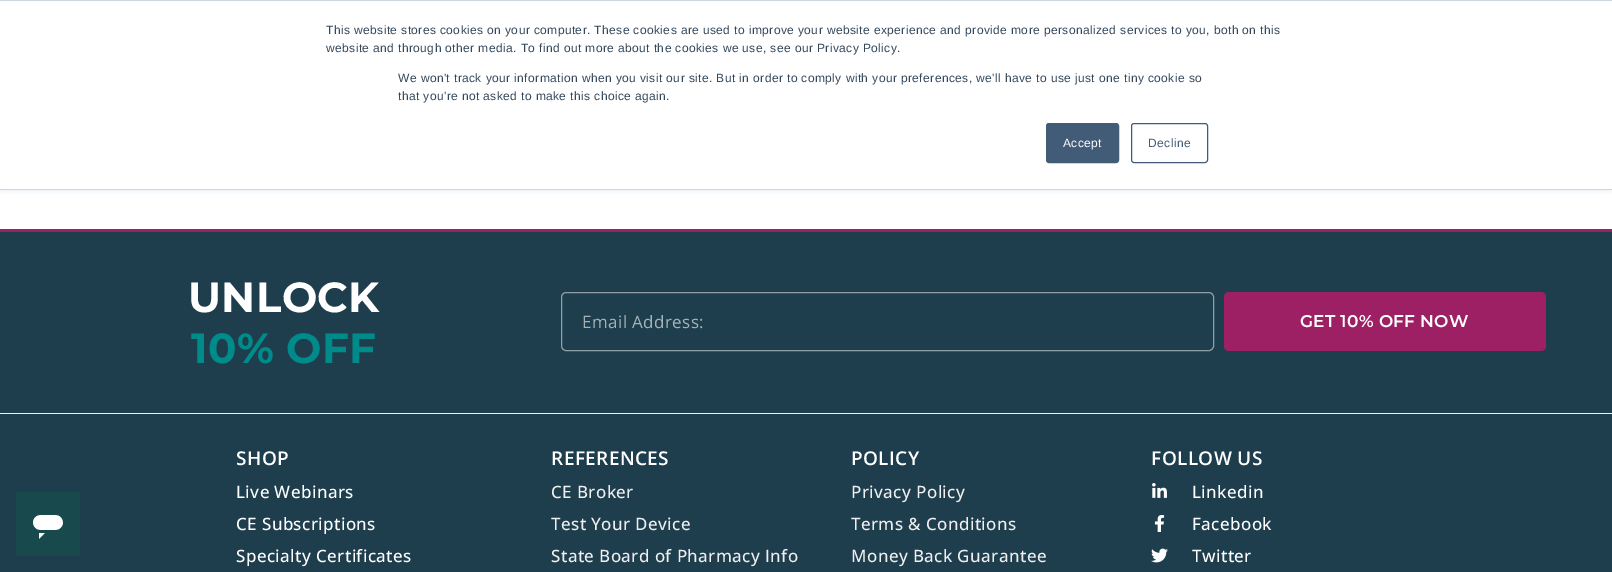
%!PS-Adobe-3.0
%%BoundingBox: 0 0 1612 572
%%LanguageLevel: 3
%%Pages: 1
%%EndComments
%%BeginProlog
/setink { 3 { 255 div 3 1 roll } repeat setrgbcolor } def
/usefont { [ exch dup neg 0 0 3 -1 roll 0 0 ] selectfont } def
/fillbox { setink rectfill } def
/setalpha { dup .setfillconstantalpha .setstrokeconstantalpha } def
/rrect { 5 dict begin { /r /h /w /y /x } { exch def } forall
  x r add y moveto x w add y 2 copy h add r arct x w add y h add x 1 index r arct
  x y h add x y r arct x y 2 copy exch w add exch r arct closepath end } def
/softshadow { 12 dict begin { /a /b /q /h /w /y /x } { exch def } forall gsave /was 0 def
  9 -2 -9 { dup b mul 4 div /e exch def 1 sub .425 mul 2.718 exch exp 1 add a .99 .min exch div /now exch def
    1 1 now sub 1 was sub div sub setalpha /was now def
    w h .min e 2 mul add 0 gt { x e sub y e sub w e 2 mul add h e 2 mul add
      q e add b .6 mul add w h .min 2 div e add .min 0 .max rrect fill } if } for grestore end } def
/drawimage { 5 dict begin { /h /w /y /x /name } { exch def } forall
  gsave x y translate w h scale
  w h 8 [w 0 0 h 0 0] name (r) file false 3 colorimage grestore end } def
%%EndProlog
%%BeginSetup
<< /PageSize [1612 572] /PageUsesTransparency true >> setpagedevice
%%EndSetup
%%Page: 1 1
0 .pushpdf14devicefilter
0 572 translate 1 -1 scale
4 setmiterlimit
0 0 1612 572 255 255 255 fillbox
234 240 246 setink
0 1 1612 190 0 2.5 1 softshadow
0 1 1612 188 255 255 255 fillbox
0 0 1612 1 203 214 226 fillbox
0 189 1612 1 203 214 226 fillbox
/LiberationSans-Regular 12 usefont
51 71 91 setink
326 34 moveto 0.4 0 (This website stores cookies on your computer. These cookies are used to improve your website experience and provide more personalized services to you, both on this) ashow
326 52 moveto 0.4 0 (website and through other media. To find out more about the cookies we use, see our Privacy Policy.) ashow
398 82 moveto 0.4 0 (We won't track your information when you visit our site. But in order to comply with your preferences, we'll have to use just one tiny cookie so) ashow
398 100 moveto 0.4 0 (that you're not asked to make this choice again.) ashow
66 91 118 setink
1046.5 123.5 72 39 2.5 rrect gsave fill grestore
stroke
255 255 255 setink
1063 147 moveto 0.4 0 (Accept) ashow
66 91 118 setink
1131.5 123.5 76 39 2.5 rrect stroke
1148 147 moveto 0.4 0 (Decline) ashow
0 414 1612 158 30 62 78 fillbox
(assets/img1.rgb) 16 492 64 64 drawimage
0 232 1612 181 30 62 78 fillbox
0 229 1612 3 158 32 100 fillbox
/Montserrat-Bold 42 usefont
255 255 255 setink
188 312 moveto 0.4 0 (UNLOCK) ashow
0 139 139 setink
191 363 moveto 0.4 0 (10% OFF) ashow
143 159 167 setink
561.5 292.5 652 58 4.5 rrect stroke
/OpenSans-Regular 17 usefont
165 178 184 setink
582 328 moveto 0.4 0 (Email Address:) ashow
158 32 100 setink
1224 292 322 59 5 rrect fill
/Montserrat-SemiBold 17 usefont
255 255 255 setink
1300 327 moveto 0.25 0 (GET 10% OFF NOW) ashow
0 413 1612 1 239 239 239 fillbox
/OpenSans-SemiBold 19 usefont
255 255 255 setink
236 465 moveto 0.4 0 (SHOP) ashow
/OpenSans-Medium 17 usefont
236 498 moveto 0.4 0 (Live Webinars) ashow
236 530 moveto 0.4 0 (CE Subscriptions) ashow
236 562 moveto 0.4 0 (Specialty Certificates) ashow
/OpenSans-SemiBold 19 usefont
551 465 moveto 0.4 0 (REFERENCES) ashow
/OpenSans-Medium 17 usefont
239 239 239 setink
551 498 moveto 0.4 0 (CE Broker) ashow
551 530 moveto 0.4 0 (Test Your Device) ashow
551 562 moveto 0.4 0 (State Board of Pharmacy Info) ashow
/OpenSans-SemiBold 19 usefont
255 255 255 setink
851 465 moveto 0.4 0 (POLICY) ashow
/OpenSans-Medium 17 usefont
239 239 239 setink
851 498 moveto 0.4 0 (Privacy Policy) ashow
851 530 moveto 0.4 0 (Terms & Conditions) ashow
851 562 moveto 0.4 0 (Money Back Guarantee) ashow
/OpenSans-SemiBold 19 usefont
255 255 255 setink
1151 465 moveto 0.4 0 (FOLLOW US) ashow
(assets/img2.rgb) 1152 483 15 15 drawimage
/OpenSans-Medium 17 usefont
1192 498 moveto 0.4 0 (Linkedin) ashow
(assets/img3.rgb) 1154 515 11 17 drawimage
1192 530 moveto 0.4 0 (Facebook) ashow
(assets/img4.rgb) 1151 548 17 15 drawimage
1192 562 moveto 0.4 0 (Twitter) ashow
.poppdf14devicefilter showpage
%%EOF
